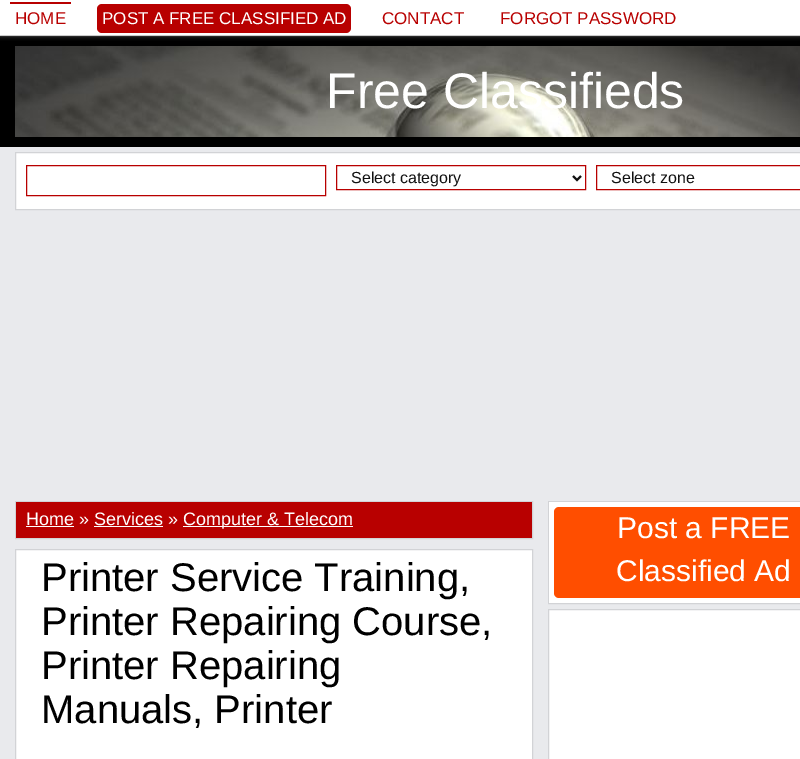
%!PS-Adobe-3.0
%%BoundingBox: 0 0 800 759
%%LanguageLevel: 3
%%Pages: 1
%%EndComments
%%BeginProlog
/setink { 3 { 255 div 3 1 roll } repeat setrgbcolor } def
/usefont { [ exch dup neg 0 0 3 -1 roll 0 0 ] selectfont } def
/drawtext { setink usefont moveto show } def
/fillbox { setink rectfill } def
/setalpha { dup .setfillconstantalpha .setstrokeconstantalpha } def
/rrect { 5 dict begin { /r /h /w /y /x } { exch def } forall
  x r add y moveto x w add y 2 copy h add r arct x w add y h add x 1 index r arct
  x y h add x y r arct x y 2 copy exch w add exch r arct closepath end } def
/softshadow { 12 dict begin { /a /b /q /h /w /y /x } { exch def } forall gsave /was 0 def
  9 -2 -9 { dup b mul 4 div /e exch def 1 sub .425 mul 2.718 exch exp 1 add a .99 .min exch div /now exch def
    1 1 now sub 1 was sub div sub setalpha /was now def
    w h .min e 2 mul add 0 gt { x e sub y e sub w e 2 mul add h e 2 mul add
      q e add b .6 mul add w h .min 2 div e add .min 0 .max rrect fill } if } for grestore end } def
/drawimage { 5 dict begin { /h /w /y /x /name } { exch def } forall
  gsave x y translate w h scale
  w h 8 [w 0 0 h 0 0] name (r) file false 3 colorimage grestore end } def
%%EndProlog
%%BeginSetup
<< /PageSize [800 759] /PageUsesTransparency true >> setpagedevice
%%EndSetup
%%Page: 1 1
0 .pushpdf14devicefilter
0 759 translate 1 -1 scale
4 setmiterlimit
0 0 800 759 233 234 237 fillbox
0 35 800 1 255 255 255 fillbox
0 36 800 111 0 0 0 fillbox
136 136 136 setink
0 0 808 35 0 2.5 1 softshadow
0 0 800 35 255 255 255 fillbox
(HOME) 15 24 /LiberationSans-Regular 17 184 0 0 drawtext
10 2 61 2 184 0 0 fillbox
97 4 254 29 5 rrect fill
(POST A FREE CLASSIFIED AD) 102 24 /LiberationSans-Regular 17 255 255 255 drawtext
(CONTACT) 382 24 /LiberationSans-Regular 17 184 0 0 drawtext
(FORGOT PASSWORD) 500 24 /LiberationSans-Regular 17 184 0 0 drawtext
(assets/img1.rgb) 15 46 785 91 drawimage
(Free Classifieds) 326 108 /LiberationSans-Regular 50 255 255 255 drawtext
15.5 152.5 moveto 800.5 152.5 lineto 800.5 209.5 lineto 15.5 209.5 lineto closepath gsave fill grestore
210 211 214 setink
stroke
184 0 0 setink
26.5 165.5 299 30 rectstroke
336.5 165.5 249 24 rectstroke
17 17 17 setink
2 setlinewidth
573 176 moveto 577 180 lineto 581 176 lineto stroke
(Select category) 351 183 /LiberationSans-Regular 16 17 17 17 drawtext
184 0 0 setink
1 setlinewidth
596.5 165.5 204 24 rectstroke
(Select zone) 611 183 /LiberationSans-Regular 16 17 17 17 drawtext
210 211 214 setink
15.5 501.5 517 37 rectstroke
16 502 516 36 184 0 0 fillbox
(Home » Services ») 26 525 /LiberationSans-Regular 18 255 255 255 drawtext
26 526 48 1 255 255 255 fillbox
183 526 170 1 255 255 255 fillbox
(Computer & Telecom) 183 525 /LiberationSans-Regular 18 255 255 255 drawtext
94 526 69 1 255 255 255 fillbox
15.5 549.5 moveto 532.5 549.5 lineto 532.5 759.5 lineto 15.5 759.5 lineto closepath gsave fill grestore
210 211 214 setink
stroke
(Printer Service Training,) 41 591 /LiberationSans-Regular 40 0 0 0 drawtext
(Printer Repairing Course,) 41 635 /LiberationSans-Regular 40 0 0 0 drawtext
(Printer Repairing) 41 679 /LiberationSans-Regular 40 0 0 0 drawtext
(Manuals, Printer) 41 723 /LiberationSans-Regular 40 0 0 0 drawtext
210 211 214 setink
548.5 501.5 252 102 rectstroke
549 502 251 101 255 255 255 fillbox
255 78 0 setink
554 507 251 91 5 rrect fill
(Post a FREE) 617 538 /LiberationSans-Regular 30 255 255 255 drawtext
(Classified Ad) 616 581 /LiberationSans-Regular 30 255 255 255 drawtext
548.5 609.5 moveto 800.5 609.5 lineto 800.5 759.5 lineto 548.5 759.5 lineto closepath gsave fill grestore
210 211 214 setink
stroke
.poppdf14devicefilter showpage
%%EOF
